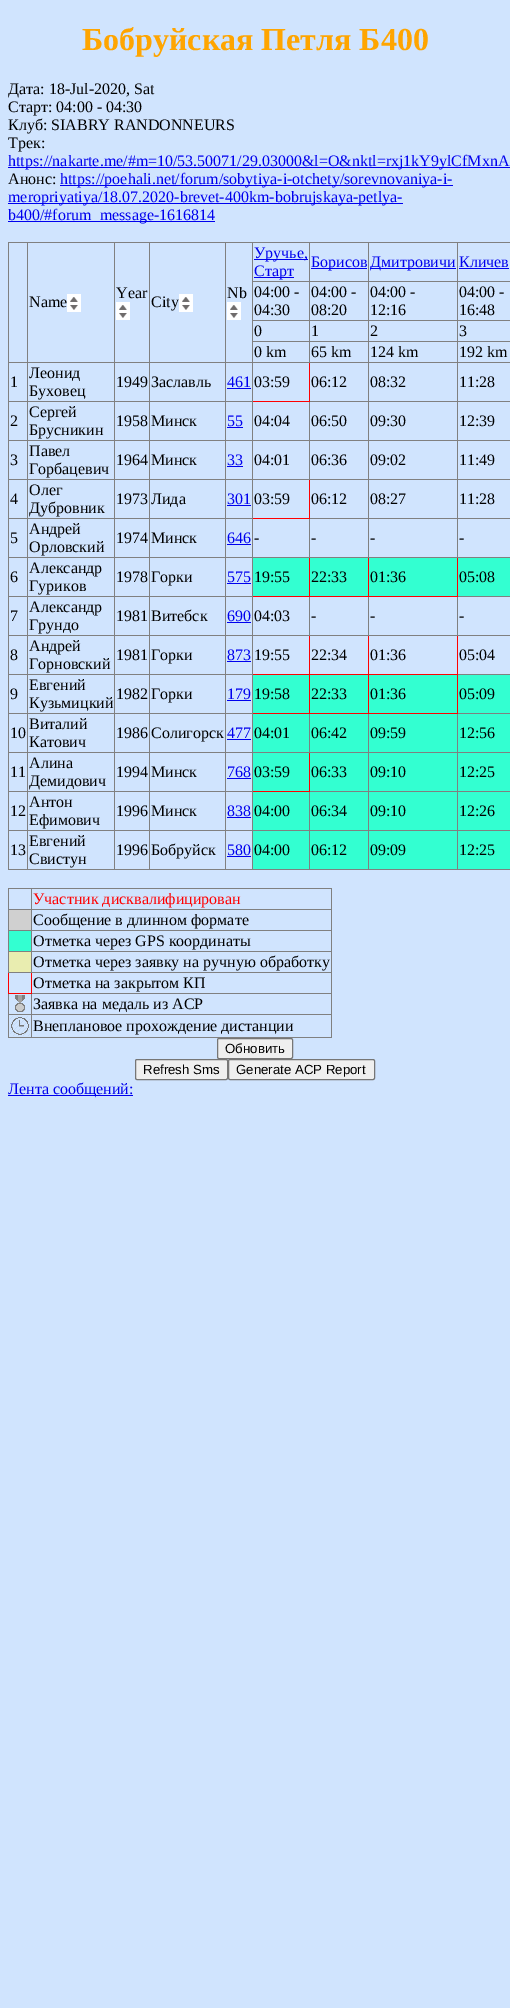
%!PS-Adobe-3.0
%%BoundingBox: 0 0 510 2008
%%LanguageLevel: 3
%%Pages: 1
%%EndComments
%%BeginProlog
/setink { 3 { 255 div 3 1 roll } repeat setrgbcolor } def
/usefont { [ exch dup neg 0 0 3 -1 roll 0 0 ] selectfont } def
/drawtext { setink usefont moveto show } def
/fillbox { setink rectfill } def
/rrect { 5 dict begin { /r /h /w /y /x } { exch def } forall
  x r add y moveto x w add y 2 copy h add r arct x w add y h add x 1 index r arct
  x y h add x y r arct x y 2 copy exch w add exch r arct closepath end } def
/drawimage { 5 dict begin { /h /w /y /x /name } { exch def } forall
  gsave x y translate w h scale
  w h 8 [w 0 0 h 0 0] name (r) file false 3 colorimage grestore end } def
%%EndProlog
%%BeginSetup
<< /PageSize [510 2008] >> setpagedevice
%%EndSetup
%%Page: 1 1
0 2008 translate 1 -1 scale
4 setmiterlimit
0 0 510 2008 208 228 254 fillbox
(Бобруйская Петля Б400) 82 50 /LiberationSerif-Bold 32 255 165 0 drawtext
(Дата: 18-Jul-2020, Sat) 8 94 /LiberationSerif-Regular 16 0 0 0 drawtext
(Старт: 04:00 - 04:30) 8 112 /LiberationSerif-Regular 16 0 0 0 drawtext
(Клуб: SIABRY RANDONNEURS) 8 130 /LiberationSerif-Regular 16 0 0 0 drawtext
(Трек:) 8 148 /LiberationSerif-Regular 16 0 0 0 drawtext
8 167 502 1 0 0 238 fillbox
(https://nakarte.me/#m=10/53.50071/29.03000&l=O&nktl=rxj1kY9ylCfMxnA) 8 166 /LiberationSerif-Regular 16 0 0 238 drawtext
(Анонс:) 8 184 /LiberationSerif-Regular 16 0 0 0 drawtext
60 185 393 1 0 0 238 fillbox
(https://poehali.net/forum/sobytiya-i-otchety/sorevnovaniya-i-) 60 184 /LiberationSerif-Regular 16 0 0 238 drawtext
8 203 395 1 0 0 238 fillbox
(meropriyatiya/18.07.2020-brevet-400km-bobrujskaya-petlya-) 8 202 /LiberationSerif-Regular 16 0 0 238 drawtext
8 221 207 1 0 0 238 fillbox
(b400/#forum_message-1616814) 8 220 /LiberationSerif-Regular 16 0 0 238 drawtext
8 242 502 1 128 128 128 fillbox
8 869 502 1 128 128 128 fillbox
8 242 1 628 128 128 128 fillbox
254 259 54 1 0 0 238 fillbox
(Уручье,) 254 258 /LiberationSerif-Regular 16 0 0 238 drawtext
254 277 40 1 0 0 238 fillbox
(Старт) 254 276 /LiberationSerif-Regular 16 0 0 238 drawtext
457 281 53 1 128 128 128 fillbox
457 320 53 1 128 128 128 fillbox
457 341 53 1 128 128 128 fillbox
457 362 53 1 128 128 128 fillbox
457 401 53 1 128 128 128 fillbox
457 440 53 1 128 128 128 fillbox
457 479 53 1 128 128 128 fillbox
457 518 53 1 128 128 128 fillbox
457 596 53 1 128 128 128 fillbox
368 674 90 1 255 0 0 fillbox
457 713 53 1 128 128 128 fillbox
457 752 53 1 128 128 128 fillbox
457 791 53 1 128 128 128 fillbox
457 830 53 1 128 128 128 fillbox
457 830 1 40 128 128 128 fillbox
368 830 90 1 128 128 128 fillbox
457 791 1 40 128 128 128 fillbox
368 791 90 1 128 128 128 fillbox
457 752 1 40 128 128 128 fillbox
368 752 90 1 128 128 128 fillbox
457 713 1 40 128 128 128 fillbox
457 674 1 40 255 0 0 fillbox
457 674 53 1 128 128 128 fillbox
457 635 1 40 255 0 0 fillbox
457 635 53 1 128 128 128 fillbox
457 596 1 40 128 128 128 fillbox
457 557 1 40 255 0 0 fillbox
457 557 53 1 128 128 128 fillbox
457 518 1 40 128 128 128 fillbox
368 518 90 1 128 128 128 fillbox
457 479 1 40 128 128 128 fillbox
368 479 90 1 128 128 128 fillbox
457 440 1 40 128 128 128 fillbox
368 440 90 1 128 128 128 fillbox
457 401 1 40 128 128 128 fillbox
368 401 90 1 128 128 128 fillbox
457 362 1 40 128 128 128 fillbox
368 362 90 1 128 128 128 fillbox
457 341 1 22 128 128 128 fillbox
368 341 90 1 128 128 128 fillbox
457 320 1 22 128 128 128 fillbox
368 320 90 1 128 128 128 fillbox
457 281 1 40 128 128 128 fillbox
368 281 90 1 128 128 128 fillbox
368 830 1 40 128 128 128 fillbox
309 830 60 1 128 128 128 fillbox
368 791 1 40 128 128 128 fillbox
309 791 60 1 128 128 128 fillbox
368 713 1 79 128 128 128 fillbox
368 713 90 1 255 0 0 fillbox
368 674 1 40 255 0 0 fillbox
309 674 60 1 255 0 0 fillbox
368 635 1 40 255 0 0 fillbox
368 635 90 1 128 128 128 fillbox
368 596 1 40 128 128 128 fillbox
368 596 90 1 255 0 0 fillbox
368 557 1 40 255 0 0 fillbox
368 557 90 1 128 128 128 fillbox
368 518 1 40 128 128 128 fillbox
309 518 60 1 128 128 128 fillbox
368 479 1 40 128 128 128 fillbox
368 440 1 40 128 128 128 fillbox
309 440 60 1 128 128 128 fillbox
368 401 1 40 128 128 128 fillbox
309 401 60 1 128 128 128 fillbox
368 362 1 40 128 128 128 fillbox
368 341 1 22 128 128 128 fillbox
309 341 60 1 128 128 128 fillbox
368 320 1 22 128 128 128 fillbox
309 320 60 1 128 128 128 fillbox
368 281 1 40 128 128 128 fillbox
309 281 60 1 128 128 128 fillbox
309 830 1 40 128 128 128 fillbox
252 830 58 1 128 128 128 fillbox
309 791 1 40 128 128 128 fillbox
309 752 1 40 255 0 0 fillbox
309 752 60 1 128 128 128 fillbox
309 713 1 40 128 128 128 fillbox
309 713 60 1 255 0 0 fillbox
309 635 1 79 255 0 0 fillbox
309 635 60 1 128 128 128 fillbox
309 596 1 40 128 128 128 fillbox
309 596 60 1 255 0 0 fillbox
309 557 1 40 255 0 0 fillbox
309 557 60 1 128 128 128 fillbox
309 518 1 40 128 128 128 fillbox
309 479 1 40 255 0 0 fillbox
309 479 60 1 128 128 128 fillbox
309 440 1 40 128 128 128 fillbox
252 440 58 1 128 128 128 fillbox
309 401 1 40 128 128 128 fillbox
309 362 1 40 255 0 0 fillbox
309 362 60 1 128 128 128 fillbox
309 341 1 22 128 128 128 fillbox
252 341 58 1 128 128 128 fillbox
309 320 1 22 128 128 128 fillbox
252 320 58 1 128 128 128 fillbox
309 281 1 40 128 128 128 fillbox
252 281 58 1 128 128 128 fillbox
309 242 1 40 128 128 128 fillbox
311 268 56 1 0 0 238 fillbox
(Борисов) 311 267 /LiberationSerif-Regular 16 0 0 238 drawtext
368 242 1 40 128 128 128 fillbox
370 268 86 1 0 0 238 fillbox
(Дмитровичи) 370 267 /LiberationSerif-Regular 16 0 0 238 drawtext
457 242 1 40 128 128 128 fillbox
(Кличев) 459 267 /LiberationSerif-Regular 16 0 0 238 drawtext
459 268 50 1 0 0 238 fillbox
225 362 28 1 128 128 128 fillbox
225 479 28 1 128 128 128 fillbox
225 557 28 1 128 128 128 fillbox
225 635 28 1 128 128 128 fillbox
225 674 28 1 128 128 128 fillbox
225 752 28 1 128 128 128 fillbox
252 830 1 40 128 128 128 fillbox
225 830 28 1 128 128 128 fillbox
252 791 1 40 128 128 128 fillbox
225 791 28 1 128 128 128 fillbox
252 791 58 1 255 0 0 fillbox
252 752 1 40 128 128 128 fillbox
252 752 58 1 128 128 128 fillbox
252 713 1 40 128 128 128 fillbox
225 713 28 1 128 128 128 fillbox
252 713 58 1 255 0 0 fillbox
252 674 1 40 128 128 128 fillbox
252 674 58 1 255 0 0 fillbox
252 635 1 40 128 128 128 fillbox
252 635 58 1 128 128 128 fillbox
252 596 1 40 128 128 128 fillbox
225 596 28 1 128 128 128 fillbox
252 596 58 1 255 0 0 fillbox
252 557 1 40 128 128 128 fillbox
252 557 58 1 128 128 128 fillbox
252 518 1 40 128 128 128 fillbox
225 518 28 1 128 128 128 fillbox
252 518 58 1 255 0 0 fillbox
252 479 1 40 128 128 128 fillbox
252 479 58 1 128 128 128 fillbox
252 440 1 40 128 128 128 fillbox
225 440 28 1 128 128 128 fillbox
252 401 1 40 128 128 128 fillbox
225 401 28 1 128 128 128 fillbox
225 830 1 40 128 128 128 fillbox
149 830 77 1 128 128 128 fillbox
225 791 1 40 128 128 128 fillbox
149 791 77 1 128 128 128 fillbox
225 752 1 40 128 128 128 fillbox
149 752 77 1 128 128 128 fillbox
225 713 1 40 128 128 128 fillbox
149 713 77 1 128 128 128 fillbox
225 674 1 40 128 128 128 fillbox
149 674 77 1 128 128 128 fillbox
225 635 1 40 128 128 128 fillbox
149 635 77 1 128 128 128 fillbox
225 596 1 40 128 128 128 fillbox
149 596 77 1 128 128 128 fillbox
225 557 1 40 128 128 128 fillbox
149 557 77 1 128 128 128 fillbox
225 518 1 40 128 128 128 fillbox
149 518 77 1 128 128 128 fillbox
225 479 1 40 128 128 128 fillbox
149 479 77 1 128 128 128 fillbox
225 440 1 40 128 128 128 fillbox
149 440 77 1 128 128 128 fillbox
225 401 1 40 128 128 128 fillbox
149 401 77 1 128 128 128 fillbox
225 362 1 40 128 128 128 fillbox
149 362 77 1 128 128 128 fillbox
149 830 1 40 128 128 128 fillbox
114 830 36 1 128 128 128 fillbox
149 791 1 40 128 128 128 fillbox
114 791 36 1 128 128 128 fillbox
149 752 1 40 128 128 128 fillbox
114 752 36 1 128 128 128 fillbox
149 713 1 40 128 128 128 fillbox
114 713 36 1 128 128 128 fillbox
149 674 1 40 128 128 128 fillbox
114 674 36 1 128 128 128 fillbox
149 635 1 40 128 128 128 fillbox
114 635 36 1 128 128 128 fillbox
149 596 1 40 128 128 128 fillbox
114 596 36 1 128 128 128 fillbox
149 557 1 40 128 128 128 fillbox
114 557 36 1 128 128 128 fillbox
149 518 1 40 128 128 128 fillbox
114 518 36 1 128 128 128 fillbox
149 479 1 40 128 128 128 fillbox
114 479 36 1 128 128 128 fillbox
149 440 1 40 128 128 128 fillbox
114 440 36 1 128 128 128 fillbox
149 401 1 40 128 128 128 fillbox
114 401 36 1 128 128 128 fillbox
149 362 1 40 128 128 128 fillbox
114 362 36 1 128 128 128 fillbox
114 830 1 40 128 128 128 fillbox
27 830 88 1 128 128 128 fillbox
114 791 1 40 128 128 128 fillbox
27 791 88 1 128 128 128 fillbox
114 752 1 40 128 128 128 fillbox
27 752 88 1 128 128 128 fillbox
114 713 1 40 128 128 128 fillbox
27 713 88 1 128 128 128 fillbox
114 674 1 40 128 128 128 fillbox
27 674 88 1 128 128 128 fillbox
114 635 1 40 128 128 128 fillbox
27 635 88 1 128 128 128 fillbox
114 596 1 40 128 128 128 fillbox
27 596 88 1 128 128 128 fillbox
114 557 1 40 128 128 128 fillbox
27 557 88 1 128 128 128 fillbox
114 518 1 40 128 128 128 fillbox
27 518 88 1 128 128 128 fillbox
114 479 1 40 128 128 128 fillbox
27 479 88 1 128 128 128 fillbox
114 440 1 40 128 128 128 fillbox
27 440 88 1 128 128 128 fillbox
114 401 1 40 128 128 128 fillbox
27 401 88 1 128 128 128 fillbox
114 362 1 40 128 128 128 fillbox
27 362 88 1 128 128 128 fillbox
114 242 1 121 128 128 128 fillbox
(Year) 116 298 /LiberationSerif-Regular 16 0 0 0 drawtext
(assets/img1.rgb) 116 302 14 18 drawimage
225 242 1 121 128 128 128 fillbox
(Nb) 227 298 /LiberationSerif-Regular 16 0 0 0 drawtext
(assets/img1.rgb) 227 302 14 18 drawimage
27 830 1 40 128 128 128 fillbox
8 830 20 1 128 128 128 fillbox
27 791 1 40 128 128 128 fillbox
8 791 20 1 128 128 128 fillbox
27 752 1 40 128 128 128 fillbox
8 752 20 1 128 128 128 fillbox
27 713 1 40 128 128 128 fillbox
8 713 20 1 128 128 128 fillbox
27 674 1 40 128 128 128 fillbox
8 674 20 1 128 128 128 fillbox
27 635 1 40 128 128 128 fillbox
8 635 20 1 128 128 128 fillbox
27 596 1 40 128 128 128 fillbox
8 596 20 1 128 128 128 fillbox
27 557 1 40 128 128 128 fillbox
8 557 20 1 128 128 128 fillbox
27 518 1 40 128 128 128 fillbox
8 518 20 1 128 128 128 fillbox
27 479 1 40 128 128 128 fillbox
8 479 20 1 128 128 128 fillbox
27 440 1 40 128 128 128 fillbox
8 440 20 1 128 128 128 fillbox
27 401 1 40 128 128 128 fillbox
8 401 20 1 128 128 128 fillbox
27 362 1 40 128 128 128 fillbox
8 362 20 1 128 128 128 fillbox
27 242 1 121 128 128 128 fillbox
(Name) 29 307 /LiberationSerif-Regular 16 0 0 0 drawtext
(assets/img1.rgb) 67 294 14 18 drawimage
149 242 1 121 128 128 128 fillbox
(City) 151 307 /LiberationSerif-Regular 16 0 0 0 drawtext
(assets/img1.rgb) 179 294 14 18 drawimage
252 401 58 1 255 0 0 fillbox
252 362 1 40 128 128 128 fillbox
252 362 58 1 128 128 128 fillbox
252 341 1 22 128 128 128 fillbox
252 320 1 22 128 128 128 fillbox
252 242 1 79 128 128 128 fillbox
(04:00 -) 254 297 /LiberationSerif-Regular 16 0 0 0 drawtext
(04:30) 254 315 /LiberationSerif-Regular 16 0 0 0 drawtext
(04:00 -) 311 297 /LiberationSerif-Regular 16 0 0 0 drawtext
(08:20) 311 315 /LiberationSerif-Regular 16 0 0 0 drawtext
(04:00 -) 370 297 /LiberationSerif-Regular 16 0 0 0 drawtext
(12:16) 370 315 /LiberationSerif-Regular 16 0 0 0 drawtext
(04:00 -) 459 297 /LiberationSerif-Regular 16 0 0 0 drawtext
(16:48) 459 315 /LiberationSerif-Regular 16 0 0 0 drawtext
(0) 254 336 /LiberationSerif-Regular 16 0 0 0 drawtext
(1) 311 336 /LiberationSerif-Regular 16 0 0 0 drawtext
(2) 370 336 /LiberationSerif-Regular 16 0 0 0 drawtext
(3) 459 336 /LiberationSerif-Regular 16 0 0 0 drawtext
(0 km) 254 357 /LiberationSerif-Regular 16 0 0 0 drawtext
(65 km) 311 357 /LiberationSerif-Regular 16 0 0 0 drawtext
(124 km) 370 357 /LiberationSerif-Regular 16 0 0 0 drawtext
(192 km) 459 357 /LiberationSerif-Regular 16 0 0 0 drawtext
(1) 10 387 /LiberationSerif-Regular 16 0 0 0 drawtext
(Леонид) 29 378 /LiberationSerif-Regular 16 0 0 0 drawtext
(Буховец) 29 396 /LiberationSerif-Regular 16 0 0 0 drawtext
(1949) 116 387 /LiberationSerif-Regular 16 0 0 0 drawtext
(Заславль) 151 387 /LiberationSerif-Regular 16 0 0 0 drawtext
(461) 227 387 /LiberationSerif-Regular 16 0 0 238 drawtext
227 388 24 1 0 0 238 fillbox
(03:59) 254 387 /LiberationSerif-Regular 16 0 0 0 drawtext
(06:12) 311 387 /LiberationSerif-Regular 16 0 0 0 drawtext
(08:32) 370 387 /LiberationSerif-Regular 16 0 0 0 drawtext
(11:28) 459 387 /LiberationSerif-Regular 16 0 0 0 drawtext
(2) 10 426 /LiberationSerif-Regular 16 0 0 0 drawtext
(Сергей) 29 417 /LiberationSerif-Regular 16 0 0 0 drawtext
(Брусникин) 29 435 /LiberationSerif-Regular 16 0 0 0 drawtext
(1958) 116 426 /LiberationSerif-Regular 16 0 0 0 drawtext
(Минск) 151 426 /LiberationSerif-Regular 16 0 0 0 drawtext
(55) 227 426 /LiberationSerif-Regular 16 0 0 238 drawtext
227 427 16 1 0 0 238 fillbox
(04:04) 254 426 /LiberationSerif-Regular 16 0 0 0 drawtext
(06:50) 311 426 /LiberationSerif-Regular 16 0 0 0 drawtext
(09:30) 370 426 /LiberationSerif-Regular 16 0 0 0 drawtext
(12:39) 459 426 /LiberationSerif-Regular 16 0 0 0 drawtext
(3) 10 465 /LiberationSerif-Regular 16 0 0 0 drawtext
(Павел) 29 456 /LiberationSerif-Regular 16 0 0 0 drawtext
(Горбацевич) 29 474 /LiberationSerif-Regular 16 0 0 0 drawtext
(1964) 116 465 /LiberationSerif-Regular 16 0 0 0 drawtext
(Минск) 151 465 /LiberationSerif-Regular 16 0 0 0 drawtext
(33) 227 465 /LiberationSerif-Regular 16 0 0 238 drawtext
227 466 16 1 0 0 238 fillbox
(04:01) 254 465 /LiberationSerif-Regular 16 0 0 0 drawtext
(06:36) 311 465 /LiberationSerif-Regular 16 0 0 0 drawtext
(09:02) 370 465 /LiberationSerif-Regular 16 0 0 0 drawtext
(11:49) 459 465 /LiberationSerif-Regular 16 0 0 0 drawtext
(4) 10 504 /LiberationSerif-Regular 16 0 0 0 drawtext
(Олег) 29 495 /LiberationSerif-Regular 16 0 0 0 drawtext
(Дубровник) 29 513 /LiberationSerif-Regular 16 0 0 0 drawtext
(1973) 116 504 /LiberationSerif-Regular 16 0 0 0 drawtext
(Лида) 151 504 /LiberationSerif-Regular 16 0 0 0 drawtext
(301) 227 504 /LiberationSerif-Regular 16 0 0 238 drawtext
227 505 24 1 0 0 238 fillbox
(03:59) 254 504 /LiberationSerif-Regular 16 0 0 0 drawtext
(06:12) 311 504 /LiberationSerif-Regular 16 0 0 0 drawtext
(08:27) 370 504 /LiberationSerif-Regular 16 0 0 0 drawtext
(11:28) 459 504 /LiberationSerif-Regular 16 0 0 0 drawtext
(5) 10 543 /LiberationSerif-Regular 16 0 0 0 drawtext
(Андрей) 29 534 /LiberationSerif-Regular 16 0 0 0 drawtext
(Орловский) 29 552 /LiberationSerif-Regular 16 0 0 0 drawtext
(1974) 116 543 /LiberationSerif-Regular 16 0 0 0 drawtext
(Минск) 151 543 /LiberationSerif-Regular 16 0 0 0 drawtext
(646) 227 543 /LiberationSerif-Regular 16 0 0 238 drawtext
227 544 24 1 0 0 238 fillbox
(-) 254 543 /LiberationSerif-Regular 16 0 0 0 drawtext
(-) 311 543 /LiberationSerif-Regular 16 0 0 0 drawtext
(-) 370 543 /LiberationSerif-Regular 16 0 0 0 drawtext
(-) 459 543 /LiberationSerif-Regular 16 0 0 0 drawtext
(6) 10 582 /LiberationSerif-Regular 16 0 0 0 drawtext
(Александр) 29 573 /LiberationSerif-Regular 16 0 0 0 drawtext
(Гуриков) 29 591 /LiberationSerif-Regular 16 0 0 0 drawtext
(1978) 116 582 /LiberationSerif-Regular 16 0 0 0 drawtext
(Горки) 151 582 /LiberationSerif-Regular 16 0 0 0 drawtext
(575) 227 582 /LiberationSerif-Regular 16 0 0 238 drawtext
227 583 24 1 0 0 238 fillbox
253 558 56 38 51 255 209 fillbox
(19:55) 254 582 /LiberationSerif-Regular 16 0 0 0 drawtext
310 558 58 38 51 255 209 fillbox
(22:33) 311 582 /LiberationSerif-Regular 16 0 0 0 drawtext
369 558 88 38 51 255 209 fillbox
(01:36) 370 582 /LiberationSerif-Regular 16 0 0 0 drawtext
458 558 52 38 51 255 209 fillbox
(05:08) 459 582 /LiberationSerif-Regular 16 0 0 0 drawtext
(7) 10 621 /LiberationSerif-Regular 16 0 0 0 drawtext
(Александр) 29 612 /LiberationSerif-Regular 16 0 0 0 drawtext
(Грундо) 29 630 /LiberationSerif-Regular 16 0 0 0 drawtext
(1981) 116 621 /LiberationSerif-Regular 16 0 0 0 drawtext
(Витебск) 151 621 /LiberationSerif-Regular 16 0 0 0 drawtext
(690) 227 621 /LiberationSerif-Regular 16 0 0 238 drawtext
227 622 24 1 0 0 238 fillbox
(04:03) 254 621 /LiberationSerif-Regular 16 0 0 0 drawtext
(-) 311 621 /LiberationSerif-Regular 16 0 0 0 drawtext
(-) 370 621 /LiberationSerif-Regular 16 0 0 0 drawtext
(-) 459 621 /LiberationSerif-Regular 16 0 0 0 drawtext
(8) 10 660 /LiberationSerif-Regular 16 0 0 0 drawtext
(Андрей) 29 651 /LiberationSerif-Regular 16 0 0 0 drawtext
(Горновский) 29 669 /LiberationSerif-Regular 16 0 0 0 drawtext
(1981) 116 660 /LiberationSerif-Regular 16 0 0 0 drawtext
(Горки) 151 660 /LiberationSerif-Regular 16 0 0 0 drawtext
(873) 227 660 /LiberationSerif-Regular 16 0 0 238 drawtext
227 661 24 1 0 0 238 fillbox
(19:55) 254 660 /LiberationSerif-Regular 16 0 0 0 drawtext
(22:34) 311 660 /LiberationSerif-Regular 16 0 0 0 drawtext
(01:36) 370 660 /LiberationSerif-Regular 16 0 0 0 drawtext
(05:04) 459 660 /LiberationSerif-Regular 16 0 0 0 drawtext
(9) 10 699 /LiberationSerif-Regular 16 0 0 0 drawtext
(Евгений) 29 690 /LiberationSerif-Regular 16 0 0 0 drawtext
(Кузьмицкий) 29 708 /LiberationSerif-Regular 16 0 0 0 drawtext
(1982) 116 699 /LiberationSerif-Regular 16 0 0 0 drawtext
(Горки) 151 699 /LiberationSerif-Regular 16 0 0 0 drawtext
(179) 227 699 /LiberationSerif-Regular 16 0 0 238 drawtext
227 700 24 1 0 0 238 fillbox
253 675 56 38 51 255 209 fillbox
(19:58) 254 699 /LiberationSerif-Regular 16 0 0 0 drawtext
310 675 58 38 51 255 209 fillbox
(22:33) 311 699 /LiberationSerif-Regular 16 0 0 0 drawtext
369 675 88 38 51 255 209 fillbox
(01:36) 370 699 /LiberationSerif-Regular 16 0 0 0 drawtext
458 675 52 38 51 255 209 fillbox
(05:09) 459 699 /LiberationSerif-Regular 16 0 0 0 drawtext
(10) 10 738 /LiberationSerif-Regular 16 0 0 0 drawtext
(Виталий) 29 729 /LiberationSerif-Regular 16 0 0 0 drawtext
(Катович) 29 747 /LiberationSerif-Regular 16 0 0 0 drawtext
(1986) 116 738 /LiberationSerif-Regular 16 0 0 0 drawtext
(Солигорск) 151 738 /LiberationSerif-Regular 16 0 0 0 drawtext
(477) 227 738 /LiberationSerif-Regular 16 0 0 238 drawtext
227 739 24 1 0 0 238 fillbox
253 714 56 38 51 255 209 fillbox
(04:01) 254 738 /LiberationSerif-Regular 16 0 0 0 drawtext
310 714 58 38 51 255 209 fillbox
(06:42) 311 738 /LiberationSerif-Regular 16 0 0 0 drawtext
369 714 88 38 51 255 209 fillbox
(09:59) 370 738 /LiberationSerif-Regular 16 0 0 0 drawtext
458 714 52 38 51 255 209 fillbox
(12:56) 459 738 /LiberationSerif-Regular 16 0 0 0 drawtext
(11) 10 777 /LiberationSerif-Regular 16 0 0 0 drawtext
(Алина) 29 768 /LiberationSerif-Regular 16 0 0 0 drawtext
(Демидович) 29 786 /LiberationSerif-Regular 16 0 0 0 drawtext
(1994) 116 777 /LiberationSerif-Regular 16 0 0 0 drawtext
(Минск) 151 777 /LiberationSerif-Regular 16 0 0 0 drawtext
(768) 227 777 /LiberationSerif-Regular 16 0 0 238 drawtext
227 778 24 1 0 0 238 fillbox
253 753 56 38 51 255 209 fillbox
(03:59) 254 777 /LiberationSerif-Regular 16 0 0 0 drawtext
310 753 58 38 51 255 209 fillbox
(06:33) 311 777 /LiberationSerif-Regular 16 0 0 0 drawtext
369 753 88 38 51 255 209 fillbox
(09:10) 370 777 /LiberationSerif-Regular 16 0 0 0 drawtext
458 753 52 38 51 255 209 fillbox
(12:25) 459 777 /LiberationSerif-Regular 16 0 0 0 drawtext
(12) 10 816 /LiberationSerif-Regular 16 0 0 0 drawtext
(Антон) 29 807 /LiberationSerif-Regular 16 0 0 0 drawtext
(Ефимович) 29 825 /LiberationSerif-Regular 16 0 0 0 drawtext
(1996) 116 816 /LiberationSerif-Regular 16 0 0 0 drawtext
(Минск) 151 816 /LiberationSerif-Regular 16 0 0 0 drawtext
(838) 227 816 /LiberationSerif-Regular 16 0 0 238 drawtext
227 817 24 1 0 0 238 fillbox
253 792 56 38 51 255 209 fillbox
(04:00) 254 816 /LiberationSerif-Regular 16 0 0 0 drawtext
310 792 58 38 51 255 209 fillbox
(06:34) 311 816 /LiberationSerif-Regular 16 0 0 0 drawtext
369 792 88 38 51 255 209 fillbox
(09:10) 370 816 /LiberationSerif-Regular 16 0 0 0 drawtext
458 792 52 38 51 255 209 fillbox
(12:26) 459 816 /LiberationSerif-Regular 16 0 0 0 drawtext
(13) 10 855 /LiberationSerif-Regular 16 0 0 0 drawtext
(Евгений) 29 846 /LiberationSerif-Regular 16 0 0 0 drawtext
(Свистун) 29 864 /LiberationSerif-Regular 16 0 0 0 drawtext
(1996) 116 855 /LiberationSerif-Regular 16 0 0 0 drawtext
(Бобруйск) 151 855 /LiberationSerif-Regular 16 0 0 0 drawtext
(580) 227 855 /LiberationSerif-Regular 16 0 0 238 drawtext
227 856 24 1 0 0 238 fillbox
253 831 56 38 51 255 209 fillbox
(04:00) 254 855 /LiberationSerif-Regular 16 0 0 0 drawtext
310 831 58 38 51 255 209 fillbox
(06:12) 311 855 /LiberationSerif-Regular 16 0 0 0 drawtext
369 831 88 38 51 255 209 fillbox
(09:09) 370 855 /LiberationSerif-Regular 16 0 0 0 drawtext
458 831 52 38 51 255 209 fillbox
(12:25) 459 855 /LiberationSerif-Regular 16 0 0 0 drawtext
8 888 324 1 128 128 128 fillbox
331 888 1 150 128 128 128 fillbox
8 1037 324 1 128 128 128 fillbox
8 888 1 150 128 128 128 fillbox
31 909 301 1 128 128 128 fillbox
31 930 301 1 128 128 128 fillbox
31 951 301 1 128 128 128 fillbox
31 993 301 1 128 128 128 fillbox
31 1014 301 1 128 128 128 fillbox
31 1014 1 24 128 128 128 fillbox
8 1014 24 1 128 128 128 fillbox
31 993 1 22 128 128 128 fillbox
31 972 1 22 255 0 0 fillbox
31 972 301 1 128 128 128 fillbox
31 951 1 22 128 128 128 fillbox
8 951 24 1 128 128 128 fillbox
31 930 1 22 128 128 128 fillbox
8 930 24 1 128 128 128 fillbox
31 909 1 22 128 128 128 fillbox
8 909 24 1 128 128 128 fillbox
31 888 1 22 128 128 128 fillbox
(Участник дисквалифицирован) 33 904 /LiberationSerif-Regular 16 255 0 0 drawtext
9 910 22 20 208 208 208 fillbox
(Сообщение в длинном формате) 33 925 /LiberationSerif-Regular 16 0 0 0 drawtext
9 931 22 20 51 255 209 fillbox
(Отметка через GPS координаты) 33 946 /LiberationSerif-Regular 16 0 0 0 drawtext
9 952 22 20 233 237 176 fillbox
8 993 24 1 255 0 0 fillbox
8 972 1 22 255 0 0 fillbox
8 972 24 1 128 128 128 fillbox
(Отметка через заявку на ручную обработку) 33 967 /LiberationSerif-Regular 16 0 0 0 drawtext
(Отметка на закрытом КП) 33 988 /LiberationSerif-Regular 16 0 0 0 drawtext
(assets/img2.rgb) 15 995 10 17 drawimage
(Заявка на медаль из АСР) 33 1009 /LiberationSerif-Regular 16 0 0 0 drawtext
(assets/img3.rgb) 10 1016 20 20 drawimage
(Внеплановое прохождение дистанции) 33 1031 /LiberationSerif-Regular 16 0 0 0 drawtext
239 239 239 setink
217.5 1038.5 75 20 1.5 rrect gsave fill grestore
118 118 118 setink
stroke
(Обновить) 225 1053 /LiberationSans-Regular 13.25 0 0 0 drawtext
239 239 239 setink
135.5 1059.5 92 20 1.5 rrect gsave fill grestore
118 118 118 setink
stroke
(Refresh Sms) 143 1074 /LiberationSans-Regular 13.25 0 0 0 drawtext
239 239 239 setink
228.5 1059.5 146 20 1.5 rrect gsave fill grestore
118 118 118 setink
stroke
(Generate ACP Report) 236 1074 /LiberationSans-Regular 13.25 0 0 0 drawtext
8 1095 125 1 0 0 238 fillbox
(Лента сообщений:) 8 1094 /LiberationSerif-Regular 16 0 0 238 drawtext
showpage
%%EOF
